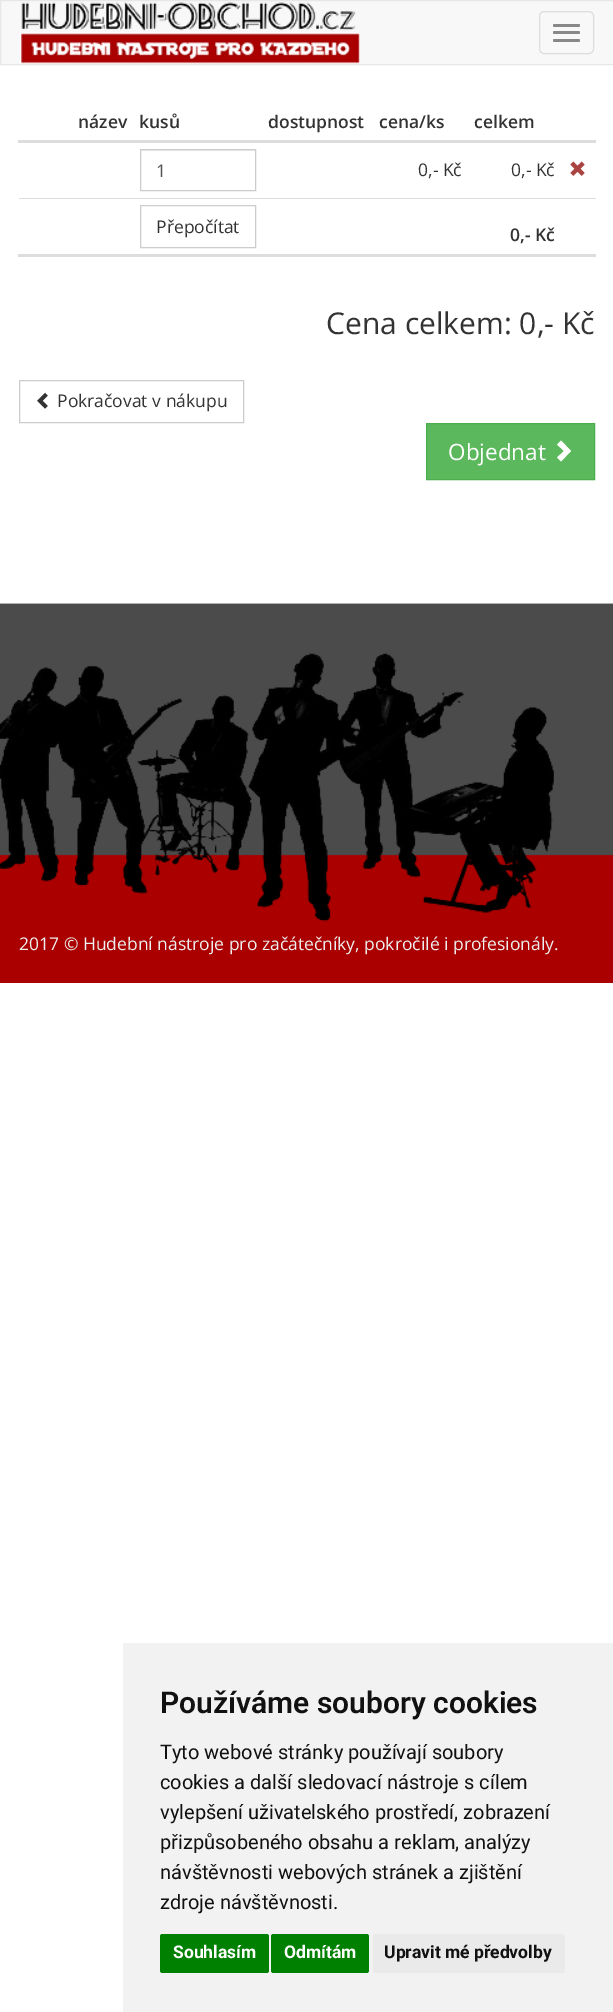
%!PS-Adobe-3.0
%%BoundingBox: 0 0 613 2012
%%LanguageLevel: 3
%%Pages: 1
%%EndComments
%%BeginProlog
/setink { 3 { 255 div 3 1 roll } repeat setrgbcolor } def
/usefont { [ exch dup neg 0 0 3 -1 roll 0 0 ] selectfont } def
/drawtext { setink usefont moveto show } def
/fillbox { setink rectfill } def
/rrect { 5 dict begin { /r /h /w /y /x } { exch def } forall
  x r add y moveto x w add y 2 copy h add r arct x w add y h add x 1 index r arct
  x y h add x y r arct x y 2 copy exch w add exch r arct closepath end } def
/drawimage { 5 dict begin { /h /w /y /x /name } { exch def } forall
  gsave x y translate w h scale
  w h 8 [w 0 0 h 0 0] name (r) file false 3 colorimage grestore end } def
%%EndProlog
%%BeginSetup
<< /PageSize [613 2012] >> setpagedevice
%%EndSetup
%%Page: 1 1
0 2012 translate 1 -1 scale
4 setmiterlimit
0 0 613 2012 255 255 255 fillbox
248 248 248 setink
0.5 0.5 moveto 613.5 0.5 lineto 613.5 64.5 lineto 0.5 64.5 lineto closepath gsave fill grestore
231 231 231 setink
stroke
(assets/img1.rgb) 20 2 340 62 drawimage
221 221 221 setink
539.5 11.5 54 42 4.5 rrect stroke
136 136 136 setink
553 24 27 3 1.5 rrect fill
553 31 27 3 1.5 rrect fill
553 39 27 3 1.5 rrect fill
(název) 78 128 /OpenSans-SemiBold 17.5 51 51 51 drawtext
(kusů) 139 128 /OpenSans-SemiBold 17.5 51 51 51 drawtext
(dostupnost) 268 128 /OpenSans-SemiBold 17.5 51 51 51 drawtext
(cena/ks) 379 128 /OpenSans-SemiBold 17.5 51 51 51 drawtext
(celkem) 474 128 /OpenSans-SemiBold 17.5 51 51 51 drawtext
18 140 578 3 221 221 221 fillbox
141 150 114 1 236 236 236 fillbox
204 204 204 setink
140.5 149.5 115 41 rectstroke
(1) 156 177 /OpenSans-Regular 17.5 85 85 85 drawtext
(0,- Kč) 418 176 /OpenSans-Regular 17.5 51 51 51 drawtext
(0,- Kč) 511 176 /OpenSans-Regular 17.5 51 51 51 drawtext
(assets/img2.rgb) 570 161 15 15 drawimage
19 198 577 1 221 221 221 fillbox
18 254 578 3 221 221 221 fillbox
204 204 204 setink
140.5 205.5 115 42 rectstroke
(Přepočítat) 156 233 /OpenSans-Regular 17.5 51 51 51 drawtext
(0,- Kč) 510 241 /OpenSans-SemiBold 17.5 51 51 51 drawtext
(Cena celkem: 0,- Kč) 326 334 /OpenSans-Regular 30 51 51 51 drawtext
204 204 204 setink
19.5 380.5 224 42 rectstroke
(assets/img3.rgb) 37 392 11 17 drawimage
(Pokračovat v nákupu) 57 407 /OpenSans-Regular 17.5 51 51 51 drawtext
92 184 92 setink
426.5 423.5 moveto 594.5 423.5 lineto 594.5 479.5 lineto 426.5 479.5 lineto closepath gsave fill grestore
76 174 76 setink
stroke
(Objednat) 448 460 /OpenSans-Regular 22.5 255 255 255 drawtext
571 451 moveto 561 461.5 lineto 557 457.5 lineto 564 451 lineto 557 444.5 lineto 561 440.5 lineto closepath fill
0 922 613 61 171 0 0 fillbox
(assets/img4.rgb) 0 603 613 1 drawimage
(assets/img5.rgb) 0 603 613 319 drawimage
(2017 © Hudební nástroje pro začátečníky, pokročilé i profesionály.) 19 950 /OpenSans-Regular 17.5 238 238 238 drawtext
123 1643 490 369 242 242 242 fillbox
(Používáme soubory cookies) 160 1713 /Roboto-SemiBold 30 17 17 17 drawtext
(Tyto webové stránky používají soubory) 160 1759 /Roboto-Regular 20 17 17 17 drawtext
(cookies a další sledovací nástroje s cílem) 160 1789 /Roboto-Regular 20 17 17 17 drawtext
(vylepšení uživatelského prostředí, zobrazení) 160 1819 /Roboto-Regular 20 17 17 17 drawtext
(přizpůsobeného obsahu a reklam, analýzy) 160 1849 /Roboto-Regular 20 17 17 17 drawtext
(návštěvnosti webových stránek a zjištění) 160 1879 /Roboto-Regular 20 17 17 17 drawtext
(zdroje návštěvnosti.) 160 1909 /Roboto-Regular 20 17 17 17 drawtext
0 128 0 setink
160 1934 109 39 2.5 rrect fill
(Souhlasím) 173 1958 /Roboto-Bold 17.5 255 255 255 drawtext
0 128 0 setink
271 1934 98 39 2.5 rrect fill
(Odmítám) 284 1958 /Roboto-Bold 17.5 255 255 255 drawtext
234 234 234 setink
373 1934 192 39 2.5 rrect fill
(Upravit mé předvolby) 384 1958 /Roboto-Bold 17.5 17 17 17 drawtext
showpage
%%EOF
